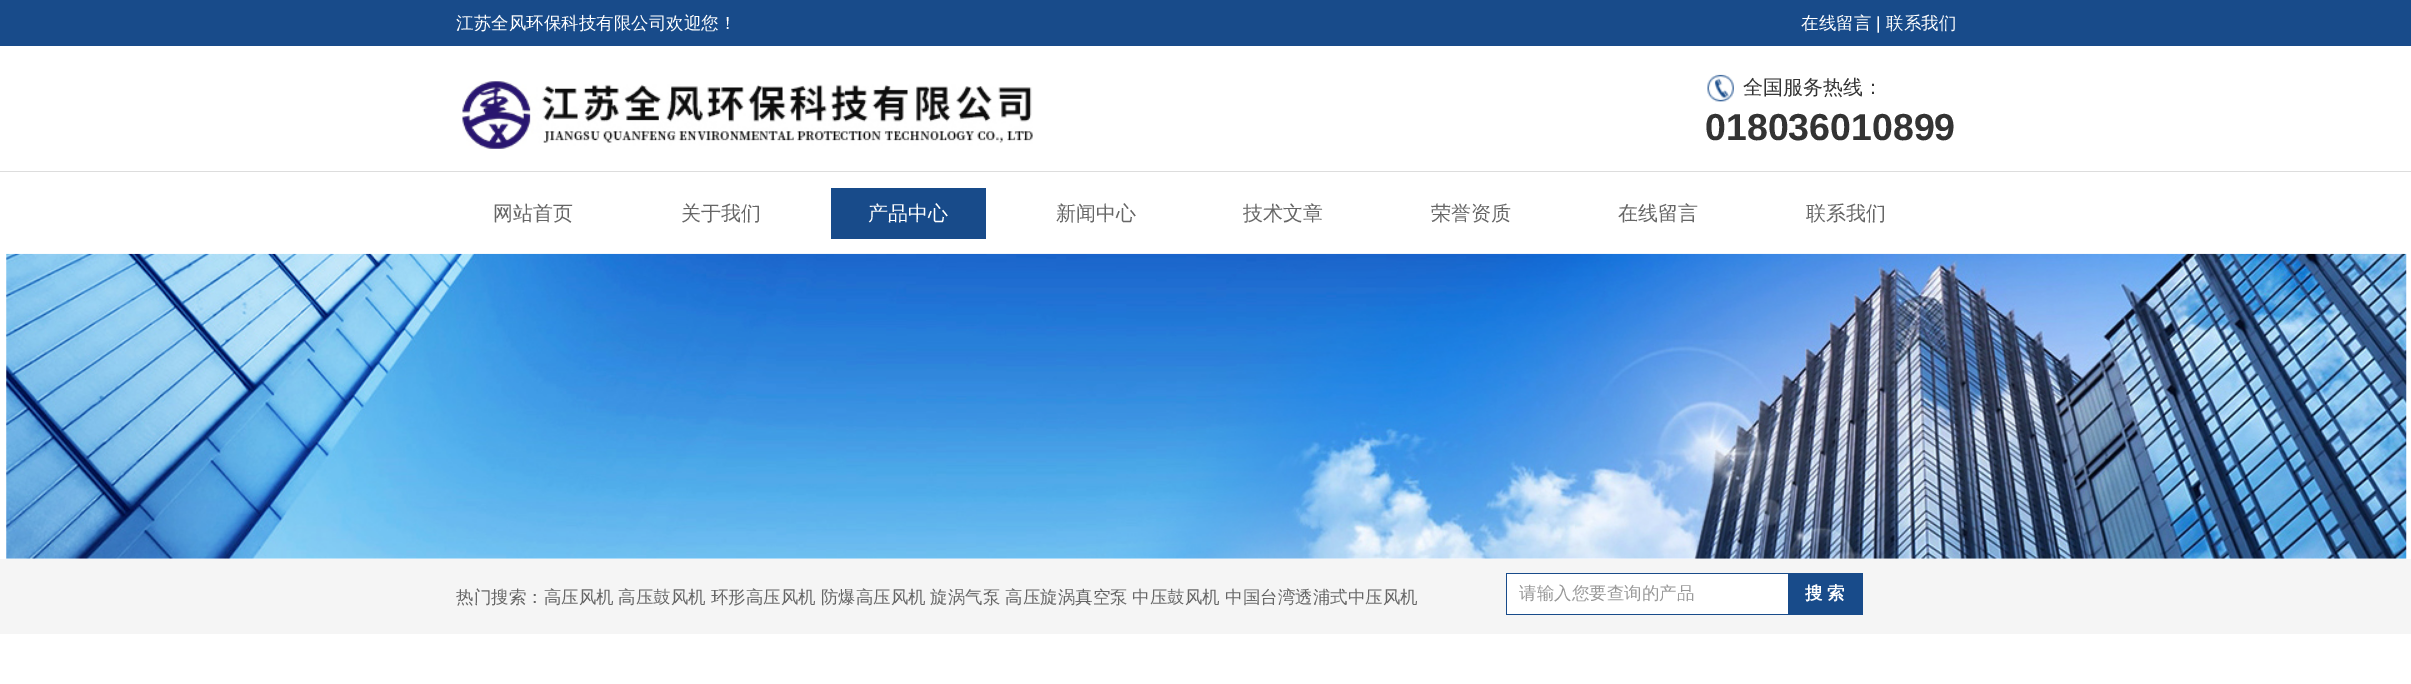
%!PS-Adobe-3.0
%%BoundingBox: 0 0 2411 684
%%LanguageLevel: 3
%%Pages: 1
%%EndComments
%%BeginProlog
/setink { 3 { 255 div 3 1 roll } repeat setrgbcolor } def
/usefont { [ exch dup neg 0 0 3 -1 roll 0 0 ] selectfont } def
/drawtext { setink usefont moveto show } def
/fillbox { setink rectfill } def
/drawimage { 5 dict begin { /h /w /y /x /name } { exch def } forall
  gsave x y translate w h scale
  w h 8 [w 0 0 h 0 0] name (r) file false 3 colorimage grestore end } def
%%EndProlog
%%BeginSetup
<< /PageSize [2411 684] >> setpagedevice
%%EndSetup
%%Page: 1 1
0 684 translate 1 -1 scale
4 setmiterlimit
0 0 2411 684 255 255 255 fillbox
0 0 2411 46 24 75 138 fillbox
(江苏全风环保科技有限公司欢迎您！) 456 29 /WenQuanYiZenHei-Medium 17.5 255 255 255 drawtext
(在线留言) 1801 29 /WenQuanYiZenHei-Medium 17.5 255 255 255 drawtext
(|) 1876 29 /LiberationSans-Regular 17.5 255 255 255 drawtext
(联系我们) 1886 29 /WenQuanYiZenHei-Medium 17.5 255 255 255 drawtext
(assets/img1.rgb) 462 81 571 68 drawimage
(assets/img2.rgb) 1707 74 27 28 drawimage
(全国服务热线：) 1743 94 /WenQuanYiZenHei-Medium 20 51 51 51 drawtext
(018036010899) 1705 140 /LiberationSans-Bold 37.5 51 51 51 drawtext
0 171 2411 1 221 221 221 fillbox
(网站首页) 493 220 /WenQuanYiZenHei-Medium 20 102 102 102 drawtext
(关于我们) 681 220 /WenQuanYiZenHei-Medium 20 102 102 102 drawtext
831 188 155 51 24 75 138 fillbox
(产品中心) 868 220 /WenQuanYiZenHei-Medium 20 255 255 255 drawtext
(新闻中心) 1056 220 /WenQuanYiZenHei-Medium 20 102 102 102 drawtext
(技术文章) 1243 220 /WenQuanYiZenHei-Medium 20 102 102 102 drawtext
(荣誉资质) 1431 220 /WenQuanYiZenHei-Medium 20 102 102 102 drawtext
(在线留言) 1618 220 /WenQuanYiZenHei-Medium 20 102 102 102 drawtext
(联系我们) 1806 220 /WenQuanYiZenHei-Medium 20 102 102 102 drawtext
(assets/img3.rgb) 6 253 2401 306 drawimage
0 559 2411 75 245 245 245 fillbox
(热门搜索：高压风机) 456 603 /WenQuanYiZenHei-Medium 17.5 102 102 102 drawtext
(高压鼓风机 环形高压风机 防爆高压风机) 618 603 /WenQuanYiZenHei-Medium 17.5 102 102 102 drawtext
(旋涡气泵 高压旋涡真空泵) 930 603 /WenQuanYiZenHei-Medium 17.5 102 102 102 drawtext
(中压鼓风机) 1132 603 /WenQuanYiZenHei-Medium 17.5 102 102 102 drawtext
(中国台湾透浦式中压风机) 1225 603 /WenQuanYiZenHei-Medium 17.5 102 102 102 drawtext
1507 574 281 40 255 255 255 fillbox
1506 573 282 1 24 75 138 fillbox
1506 614 282 1 24 75 138 fillbox
1506 573 1 42 24 75 138 fillbox
(请输入您要查询的产品) 1519 599 /WenQuanYiZenHei-Medium 17.5 153 153 153 drawtext
1788 573 75 42 24 75 138 fillbox
/WenQuanYiZenHei-Bold 17.5 usefont
255 255 255 setink
1805 599 moveto -1 0 32 (搜 索) widthshow
showpage
%%EOF
